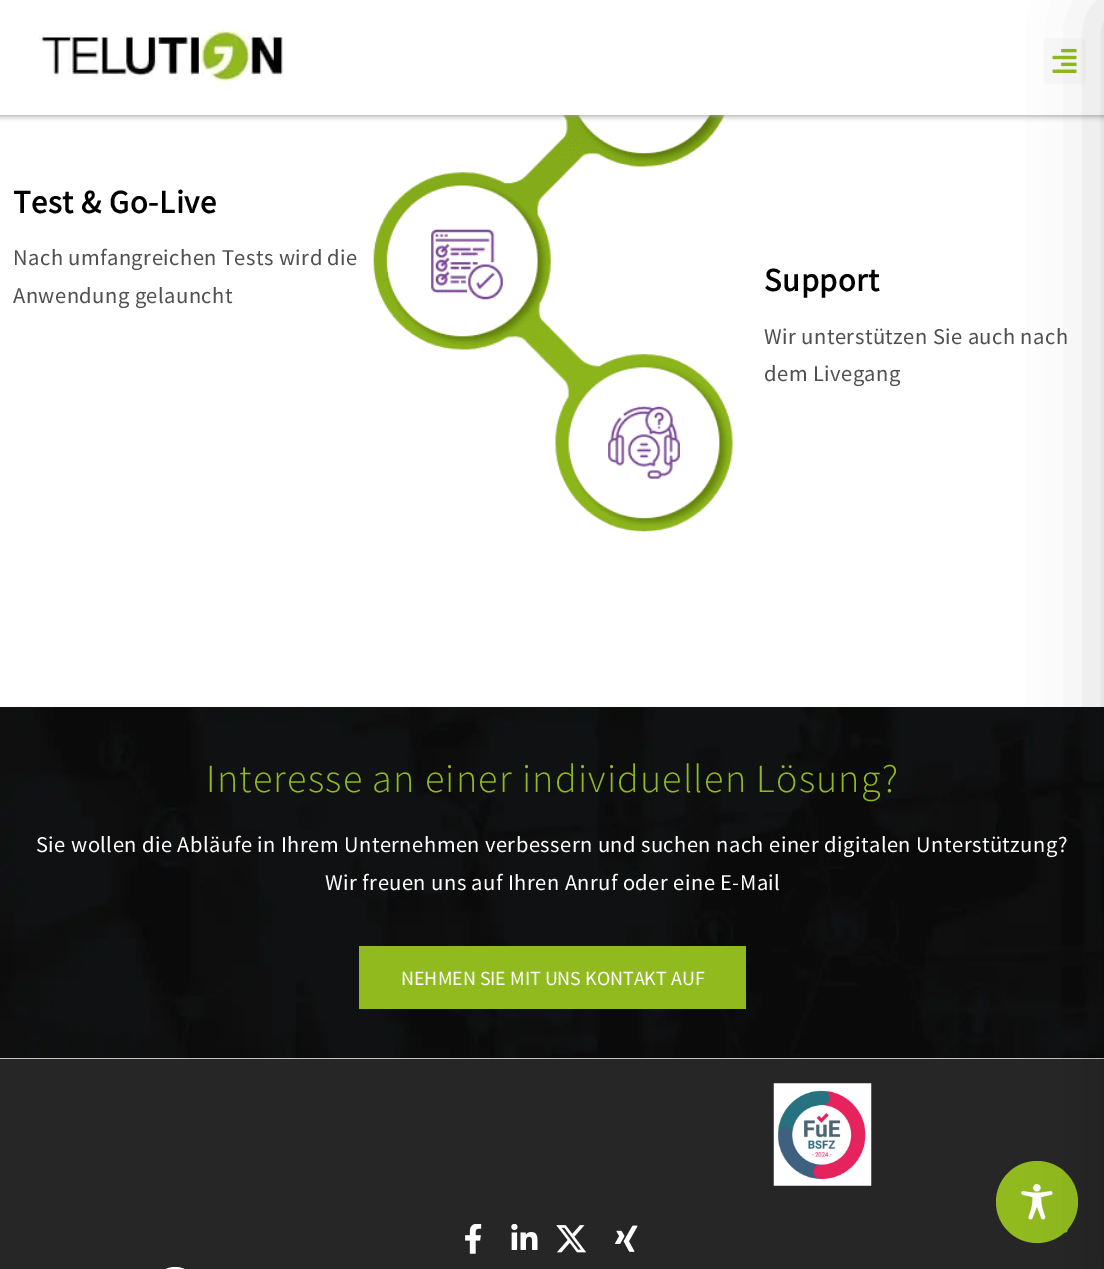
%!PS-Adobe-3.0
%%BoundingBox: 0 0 1104 1269
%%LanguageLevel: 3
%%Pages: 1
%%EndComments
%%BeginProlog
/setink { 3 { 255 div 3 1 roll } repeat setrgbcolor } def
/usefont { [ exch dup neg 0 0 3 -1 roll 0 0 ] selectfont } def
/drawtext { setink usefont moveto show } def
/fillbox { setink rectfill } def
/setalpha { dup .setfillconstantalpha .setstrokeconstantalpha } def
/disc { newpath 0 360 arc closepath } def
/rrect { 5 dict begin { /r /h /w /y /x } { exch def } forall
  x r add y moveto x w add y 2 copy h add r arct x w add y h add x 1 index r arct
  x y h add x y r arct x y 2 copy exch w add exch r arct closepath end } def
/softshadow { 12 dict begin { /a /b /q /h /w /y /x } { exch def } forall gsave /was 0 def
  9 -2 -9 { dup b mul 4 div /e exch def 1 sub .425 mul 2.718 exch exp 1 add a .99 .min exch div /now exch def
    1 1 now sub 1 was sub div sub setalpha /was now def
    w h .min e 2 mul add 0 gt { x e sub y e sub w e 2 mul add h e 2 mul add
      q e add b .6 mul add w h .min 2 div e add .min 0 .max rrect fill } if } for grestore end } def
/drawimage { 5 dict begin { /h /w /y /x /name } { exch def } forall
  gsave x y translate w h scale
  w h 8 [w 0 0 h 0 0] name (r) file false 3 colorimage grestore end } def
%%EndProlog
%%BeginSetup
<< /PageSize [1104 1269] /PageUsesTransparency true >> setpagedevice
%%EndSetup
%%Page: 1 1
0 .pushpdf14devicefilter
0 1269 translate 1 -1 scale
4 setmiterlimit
0 0 1104 1269 255 255 255 fillbox
(assets/img3.rgb) 373 115 360 417 drawimage
155 155 155 setink
0 1 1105 115 0 3 1 softshadow
0 0 1104 115 255 255 255 fillbox
250 250 250 setink
1043 38 43 46 5 rrect fill
(assets/img2.rgb) 1052 48 25 25 drawimage
(assets/img4.rgb) 0 707 1104 352 drawimage
0 1059 1104 210 38 38 38 fillbox
144 186 30 setink
1065 1232.5 moveto 1030.5 1232.5 lineto 1029 1232.5 1028 1231.5 1028 1230 curveto 1028 1195.5 lineto 1028 1194 1029 1193 1030.5 1193 curveto 1065 1193 lineto 1066.5 1193 1067.5 1194 1067.5 1195.5 curveto 1067.5 1230 lineto 1067.5 1231.5 1066.5 1232.5 1065 1232.5 curveto closepath fill
1037 1202 41 disc fill
(assets/img10.rgb) 1021 1184 32 36 drawimage
0 0 0 setink
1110 13 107 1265 0 37.5 0.2 softshadow
(assets/img1.rgb) 39 29 245 53 drawimage
/SourceSansPro-Bold 32.5 usefont
13 213 moveto 0.75 0 (Test & Go-Live) ashow
/SourceSansPro-Regular 22.5 usefont
80 80 80 setink
13 265 moveto 0.45 0 (Nach umfangreichen Tests wird die) ashow
13 303 moveto 0.45 0 (Anwendung gelauncht) ashow
/SourceSansPro-Bold 32.5 usefont
0 0 0 setink
764 291 moveto 0.75 0 (Support) ashow
/SourceSansPro-Regular 22.5 usefont
80 80 80 setink
764 344 moveto 0.45 0 (Wir unterstützen Sie auch nach) ashow
764 381 moveto 0.45 0 (dem Livegang) ashow
/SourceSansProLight-Light 40 usefont
144 186 30 setink
206 792 moveto 1.2 0 (Interesse an einer individuellen Lösung?) ashow
/SourceSansPro-Regular 22.5 usefont
255 255 255 setink
36 852 moveto 0.45 0 (Sie wollen die Abläufe in Ihrem Unternehmen verbessern und suchen nach einer digitalen Unterstützung?) ashow
325 890 moveto 0.45 0 (Wir freuen uns auf Ihren Anruf oder eine E-Mail) ashow
359 946 387 63 144 186 30 fillbox
(NEHMEN SIE MIT UNS KONTAKT AUF) 401 985 /SourceSansPro-Regular 20 255 255 255 drawtext
(assets/img5.rgb) 773 1083 99 103 drawimage
(assets/img6.rgb) 465 1224 17 30 drawimage
(assets/img7.rgb) 511 1224 27 26 drawimage
(assets/img8.rgb) 556 1225 30 28 drawimage
(assets/img9.rgb) 615 1225 23 27 drawimage
175 1267 moveto 158 1267 147 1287 157 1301 curveto 157 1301 172 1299 173 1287 curveto 164 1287 lineto 164 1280 lineto 182 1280 lineto 182 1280 184 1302 162 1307 curveto 183 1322 210 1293 191 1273 curveto 186 1269 181 1267 175 1267 curveto eofill
.poppdf14devicefilter showpage
%%EOF
